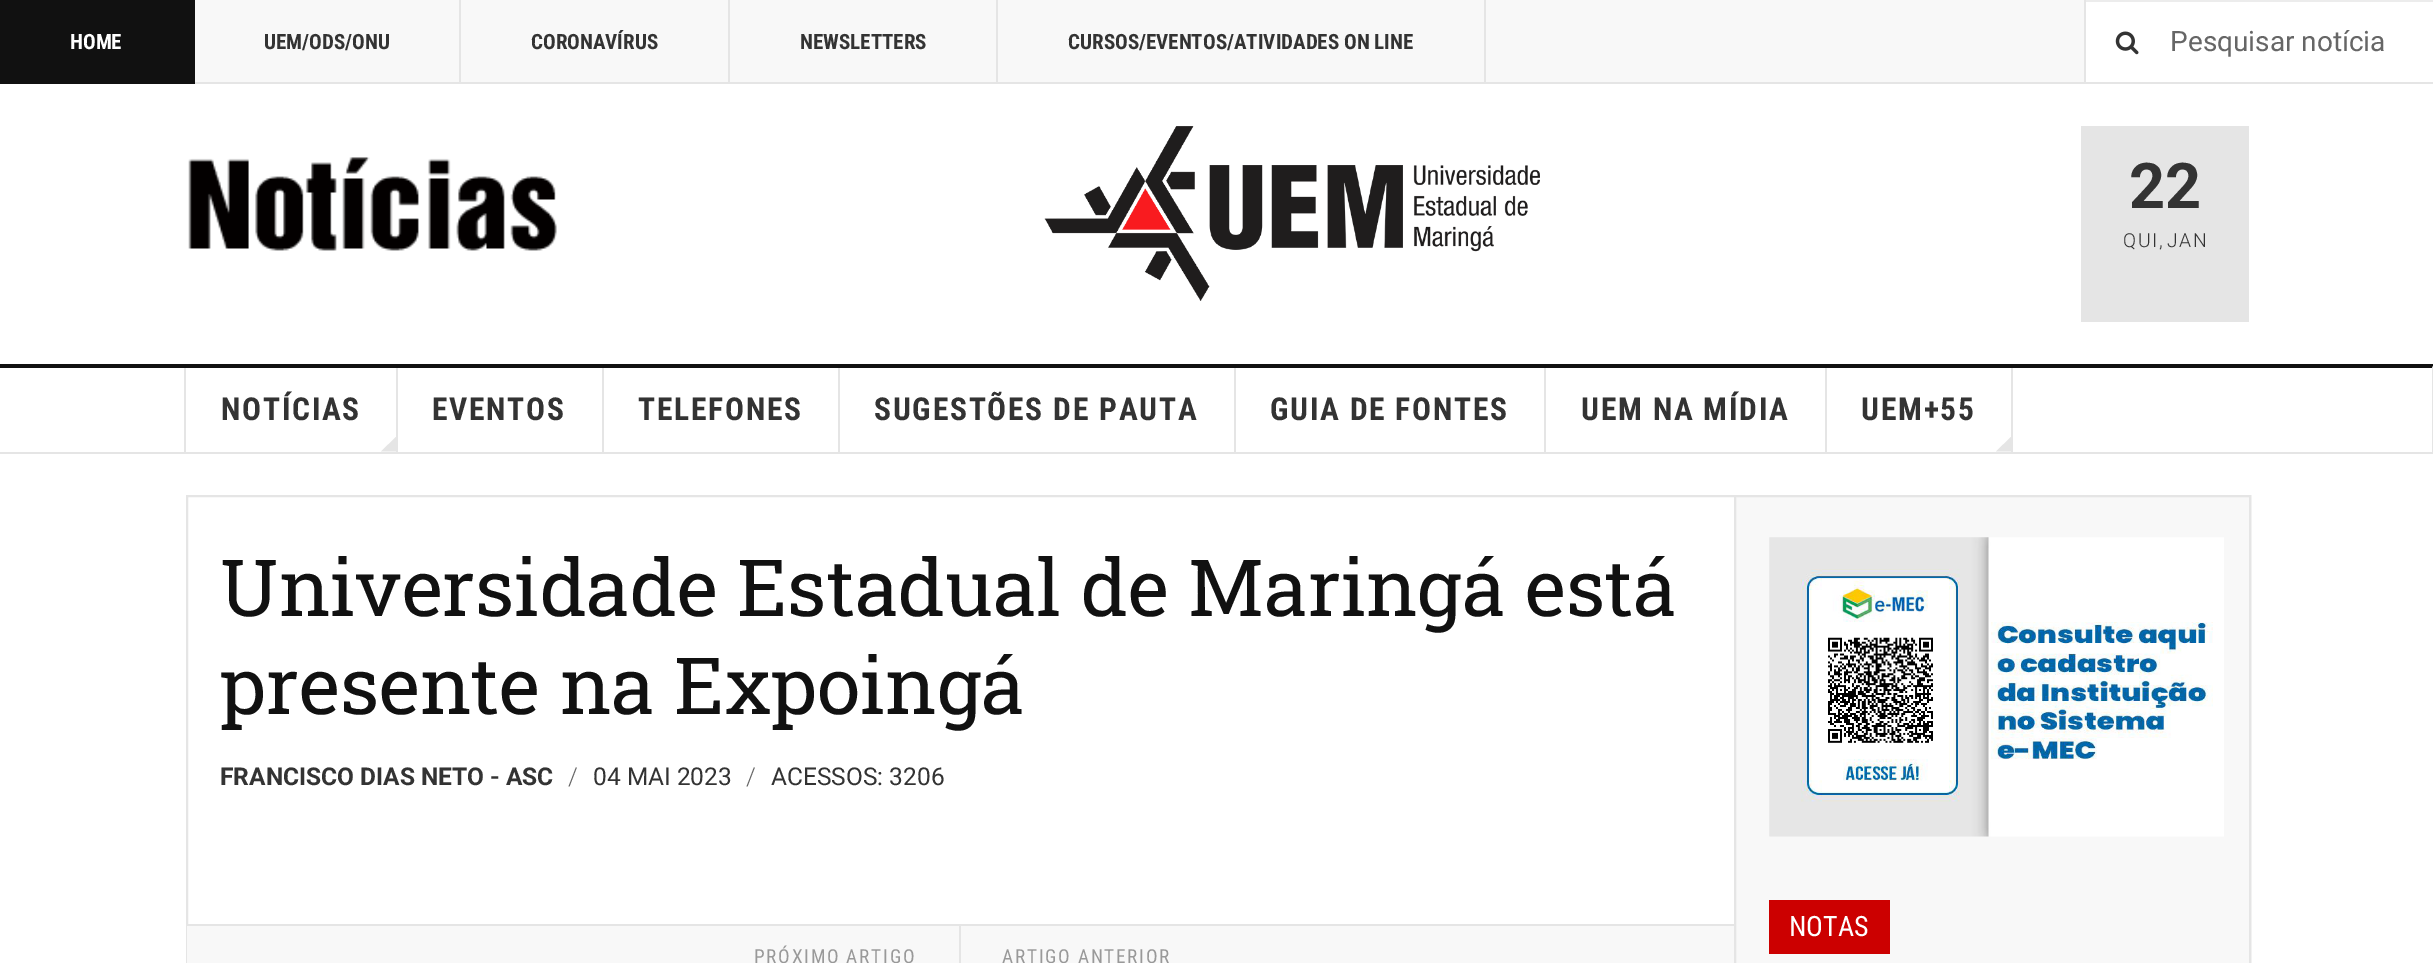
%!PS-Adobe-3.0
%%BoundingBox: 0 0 2433 963
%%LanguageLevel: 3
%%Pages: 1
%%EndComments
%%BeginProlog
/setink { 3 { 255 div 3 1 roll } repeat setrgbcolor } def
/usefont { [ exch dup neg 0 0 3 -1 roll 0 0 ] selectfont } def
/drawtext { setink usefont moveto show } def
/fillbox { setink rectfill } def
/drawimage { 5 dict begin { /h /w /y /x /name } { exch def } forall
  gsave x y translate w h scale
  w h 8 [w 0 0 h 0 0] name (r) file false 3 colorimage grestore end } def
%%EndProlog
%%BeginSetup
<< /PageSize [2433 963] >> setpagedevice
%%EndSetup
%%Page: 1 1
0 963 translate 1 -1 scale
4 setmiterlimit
0 0 2433 963 255 255 255 fillbox
195 0 1889 82 248 248 248 fillbox
195 82 2238 2 229 229 229 fillbox
0 0 195 84 17 17 17 fillbox
(HOME) 70 49 /RobotoCondensed-Bold 21 255 255 255 drawtext
459 0 2 84 229 229 229 fillbox
(UEM/ODS/ONU) 264 49 /RobotoCondensed-Bold 21 51 51 51 drawtext
728 0 2 84 229 229 229 fillbox
(CORONAVÍRUS) 531 49 /RobotoCondensed-Bold 21 51 51 51 drawtext
996 0 2 84 229 229 229 fillbox
(NEWSLETTERS) 800 49 /RobotoCondensed-Bold 21 51 51 51 drawtext
1484 0 2 84 229 229 229 fillbox
(CURSOS/EVENTOS/ATIVIDADES ON LINE) 1068 49 /RobotoCondensed-Bold 21 51 51 51 drawtext
(assets/img1.rgb) 2115 31 24 24 drawimage
2086 0 347 2 236 236 236 fillbox
2084 0 2 82 229 229 229 fillbox
(Pesquisar notícia) 2170 51 /Roboto-Regular 28 102 102 102 drawtext
(assets/img2.rgb) 188 157 369 94 drawimage
(assets/img3.rgb) 1044 126 496 175 drawimage
2081 126 168 196 229 229 229 fillbox
(22) 2129 208 /Roboto-Bold 63 51 51 51 drawtext
/Roboto-Light 19.25 usefont
2123 247 moveto 1.75 0 (QUI) ashow
(,) 2159 247 /Roboto-Light 19.25 51 51 51 drawtext
2167 247 moveto 1.75 0 (JAN) ashow
17 17 17 setink
0 364 moveto 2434 364 lineto 2432 368 lineto 0 368 lineto closepath fill
229 229 229 setink
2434 364 moveto 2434 453 lineto 2432 452 lineto 2432 368 lineto closepath fill
0 452 2433 2 229 229 229 fillbox
184 368 2 84 229 229 229 fillbox
396 368 2 84 229 229 229 fillbox
/RobotoCondensed-Bold 31.5 usefont
51 51 51 setink
221 420 moveto 1.75 0 (NOTÍCIAS) ashow
229 229 229 setink
381 451.5 moveto 396 437 lineto 396 451.5 lineto closepath fill
602 368 2 84 229 229 229 fillbox
51 51 51 setink
432 420 moveto 1.75 0 (EVENTOS) ashow
838 368 2 84 229 229 229 fillbox
51 51 51 setink
638 420 moveto 1.75 0 (TELEFONES) ashow
1234 368 2 84 229 229 229 fillbox
51 51 51 setink
874 420 moveto 1.75 0 (SUGESTÕES DE PAUTA) ashow
1544 368 2 84 229 229 229 fillbox
51 51 51 setink
1270 420 moveto 1.75 0 (GUIA DE FONTES) ashow
1825 368 2 84 229 229 229 fillbox
51 51 51 setink
1581 420 moveto 1.75 0 (UEM NA MÍDIA) ashow
2011 368 2 84 229 229 229 fillbox
51 51 51 setink
1861 420 moveto 1.75 0 (UEM+55) ashow
229 229 229 setink
1996 451.5 moveto 2011 437 lineto 2011 451.5 lineto closepath fill
2 setlinewidth
187 496 2063 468 rectstroke
(Universidade Estadual de Maringá está) 220 616 /RobotoSlab-Regular 78.75 17 17 17 drawtext
(presente na Expoingá) 220 714 /RobotoSlab-Regular 78.75 17 17 17 drawtext
(FRANCISCO DIAS NETO - ASC) 220 785 /Roboto-Bold 24.5 51 51 51 drawtext
(/) 568 785 /Roboto-Light 24.5 102 102 102 drawtext
(04 MAI 2023) 593 785 /Roboto-Regular 24.5 51 51 51 drawtext
(/) 746 785 /Roboto-Light 24.5 102 102 102 drawtext
(ACESSOS: 3206) 771 785 /Roboto-Regular 24.5 51 51 51 drawtext
186 924 1548 2 229 229 229 fillbox
959 926 2 37 229 229 229 fillbox
187 926 772 37 248 248 248 fillbox
/RobotoCondensed-Regular 19.25 usefont
153 153 153 setink
754 963 moveto 1.75 0 (PRÓXIMO ARTIGO) ashow
961 926 773 37 248 248 248 fillbox
153 153 153 setink
1002 963 moveto 1.75 0 (ARTIGO ANTERIOR) ashow
248 248 248 setink
1735 496 moveto 2250 496 lineto 2250 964 lineto 1735 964 lineto closepath gsave fill grestore
229 229 229 setink
stroke
(assets/img4.rgb) 1769 537 455 300 drawimage
1769 900 121 54 204 0 0 fillbox
(NOTAS) 1789 936 /RobotoCondensed-Regular 28 255 255 255 drawtext
showpage
%%EOF
